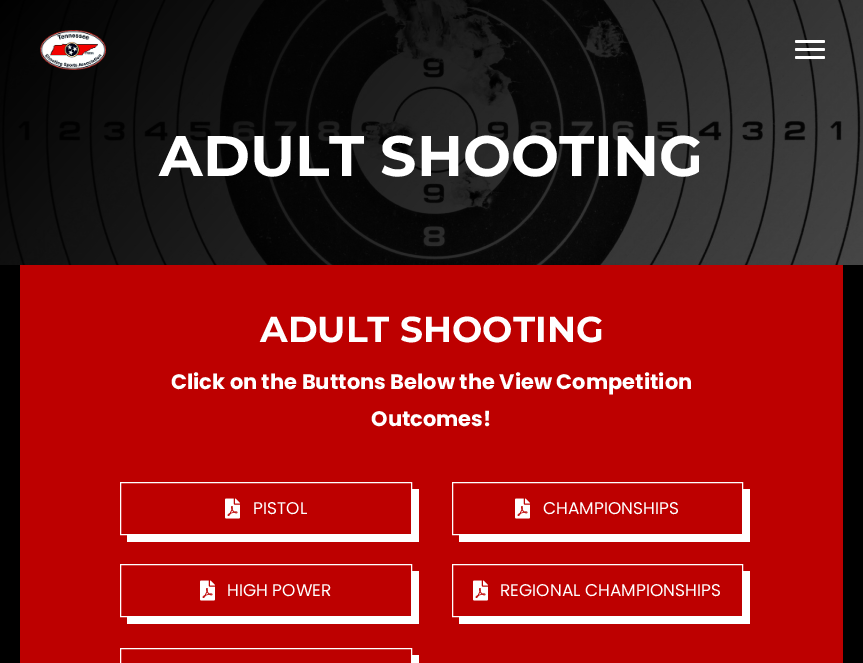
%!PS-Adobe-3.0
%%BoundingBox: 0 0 863 663
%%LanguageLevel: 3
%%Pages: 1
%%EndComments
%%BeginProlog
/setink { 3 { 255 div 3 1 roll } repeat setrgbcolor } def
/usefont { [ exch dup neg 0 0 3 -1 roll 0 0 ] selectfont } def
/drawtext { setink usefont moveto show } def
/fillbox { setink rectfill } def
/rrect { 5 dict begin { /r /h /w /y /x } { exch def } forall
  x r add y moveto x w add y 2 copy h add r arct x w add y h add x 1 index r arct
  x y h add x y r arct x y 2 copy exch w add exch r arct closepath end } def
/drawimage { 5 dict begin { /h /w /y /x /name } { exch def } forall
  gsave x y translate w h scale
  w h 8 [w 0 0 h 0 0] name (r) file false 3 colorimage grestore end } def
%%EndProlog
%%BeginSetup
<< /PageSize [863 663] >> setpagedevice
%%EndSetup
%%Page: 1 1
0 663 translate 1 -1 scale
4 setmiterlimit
0 0 863 663 255 255 255 fillbox
(assets/img2.rgb) 0 0 863 265 drawimage
(assets/img1.rgb) 40 30 66 40 drawimage
795 48 30 3 1.5 rrect fill
795 40 30 3 1.5 rrect fill
795 56 30 3 1.5 rrect fill
(ADULT SHOOTING) 159 176 /Montserrat-Thin 57 255 255 255 drawtext
0 265 863 398 0 0 0 fillbox
20 265 823 398 189 0 0 fillbox
(ADULT SHOOTING) 260 342 /Montserrat-Thin 36 255 255 255 drawtext
(Click on the Buttons Below the View Competition) 171 389 /Poppins-Bold 21 255 255 255 drawtext
(Outcomes!) 371 426 /Poppins-Bold 21 255 255 255 drawtext
127 535 moveto 127 542 lineto 419 542 lineto 419 489 lineto 412 489 lineto 412 535 lineto closepath fill
120.5 482.5 291 52 rectstroke
(assets/img3.rgb) 225 498 15 21 drawimage
(PISTOL) 253 514 /Poppins-Regular 17 255 255 255 drawtext
127 617 moveto 127 624 lineto 419 624 lineto 419 571 lineto 412 571 lineto 412 617 lineto closepath fill
120.5 564.5 291 52 rectstroke
(assets/img3.rgb) 200 580 15 21 drawimage
(HIGH POWER) 227 596 /Poppins-Regular 17 255 255 255 drawtext
127 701 moveto 127 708 lineto 419 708 lineto 419 655 lineto 412 655 lineto 412 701 lineto closepath fill
120.5 648.5 291 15 rectstroke
459 535 moveto 459 542 lineto 750 542 lineto 750 489 lineto 743 489 lineto 743 535 lineto closepath fill
452.5 482.5 290 52 rectstroke
(assets/img3.rgb) 515 498 15 21 drawimage
(CHAMPIONSHIPS) 543 514 /Poppins-Regular 17 255 255 255 drawtext
459 617 moveto 459 624 lineto 750 624 lineto 750 571 lineto 743 571 lineto 743 617 lineto closepath fill
452.5 564.5 290 52 rectstroke
(assets/img3.rgb) 473 580 15 21 drawimage
(REGIONAL CHAMPIONSHIPS) 500 596 /Poppins-Regular 17 255 255 255 drawtext
showpage
%%EOF
